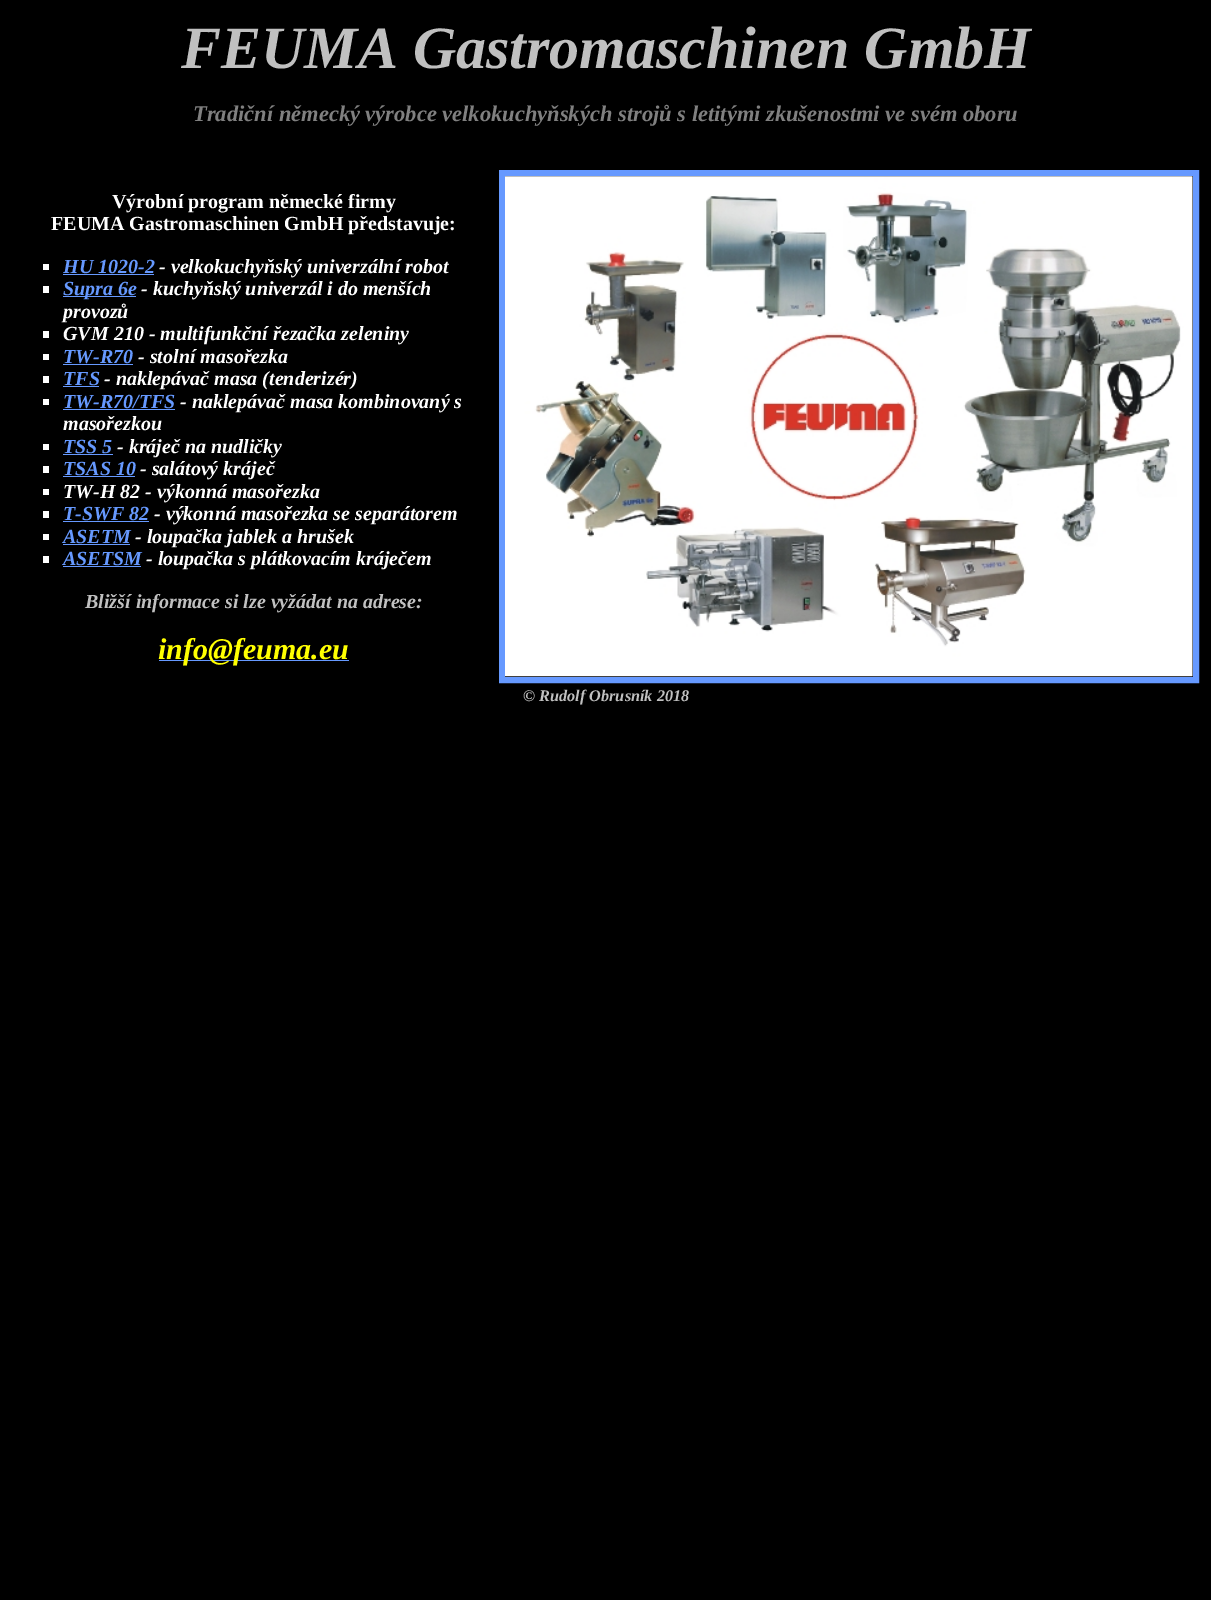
%!PS-Adobe-3.0
%%BoundingBox: 0 0 1211 1600
%%LanguageLevel: 3
%%Pages: 1
%%EndComments
%%BeginProlog
/setink { 3 { 255 div 3 1 roll } repeat setrgbcolor } def
/usefont { [ exch dup neg 0 0 3 -1 roll 0 0 ] selectfont } def
/drawtext { setink usefont moveto show } def
/fillbox { setink rectfill } def
/drawimage { 5 dict begin { /h /w /y /x /name } { exch def } forall
  gsave x y translate w h scale
  w h 8 [w 0 0 h 0 0] name (r) file false 3 colorimage grestore end } def
%%EndProlog
%%BeginSetup
<< /PageSize [1211 1600] >> setpagedevice
%%EndSetup
%%Page: 1 1
0 1600 translate 1 -1 scale
4 setmiterlimit
0 0 1211 1600 0 0 0 fillbox
(FEUMA Gastromaschinen GmbH) 181 68 /LiberationSerif-BoldItalic 60 192 192 192 drawtext
(Tradiční německý výrobce velkokuchyňských strojů s letitými zkušenostmi ve svém oboru) 193 121 /LiberationSerif-BoldItalic 22.5 128 128 128 drawtext
(Výrobní program německé firmy) 112 208 /LiberationSerif-Bold 20 255 255 255 drawtext
(FEUMA Gastromaschinen GmbH představuje:) 51 230 /LiberationSerif-Bold 20 255 255 255 drawtext
102 153 255 setink
6 setlinewidth
502 173 694 507 rectstroke
(assets/img1.rgb) 505 176 688 501 drawimage
43 264 6 6 255 255 255 fillbox
(HU 1020-2) 63 273 /LiberationSerif-BoldItalic 20 102 153 255 drawtext
63 274 91 1 102 153 255 fillbox
(- velkokuchyňský univerzální robot) 159 273 /LiberationSerif-BoldItalic 20 255 255 255 drawtext
43 286 6 7 255 255 255 fillbox
63 296 73 1 102 153 255 fillbox
(Supra 6e) 63 295 /LiberationSerif-BoldItalic 20 102 153 255 drawtext
(- kuchyňský univerzál i do menších) 141 295 /LiberationSerif-BoldItalic 20 255 255 255 drawtext
(provozů) 63 318 /LiberationSerif-BoldItalic 20 255 255 255 drawtext
43 331 6 7 255 255 255 fillbox
(GVM 210 - multifunkční řezačka zeleniny) 63 340 /LiberationSerif-BoldItalic 20 255 255 255 drawtext
43 354 6 6 255 255 255 fillbox
(TW-R70) 63 363 /LiberationSerif-BoldItalic 20 102 153 255 drawtext
63 364 70 1 102 153 255 fillbox
(- stolní masořezka) 138 363 /LiberationSerif-BoldItalic 20 255 255 255 drawtext
43 376 6 7 255 255 255 fillbox
(TFS) 63 385 /LiberationSerif-BoldItalic 20 102 153 255 drawtext
63 386 36 1 102 153 255 fillbox
(- naklepávač masa \(tenderizér\)) 104 385 /LiberationSerif-BoldItalic 20 255 255 255 drawtext
43 399 6 6 255 255 255 fillbox
(TW-R70/TFS) 63 408 /LiberationSerif-BoldItalic 20 102 153 255 drawtext
63 409 112 1 102 153 255 fillbox
(- naklepávač masa kombinovaný s) 180 408 /LiberationSerif-BoldItalic 20 255 255 255 drawtext
(masořezkou) 63 430 /LiberationSerif-BoldItalic 20 255 255 255 drawtext
43 444 6 6 255 255 255 fillbox
(TSS 5) 63 453 /LiberationSerif-BoldItalic 20 102 153 255 drawtext
63 454 50 1 102 153 255 fillbox
(- kráječ na nudličky) 117 453 /LiberationSerif-BoldItalic 20 255 255 255 drawtext
43 466 6 7 255 255 255 fillbox
(TSAS 10) 63 475 /LiberationSerif-BoldItalic 20 102 153 255 drawtext
63 476 72 1 102 153 255 fillbox
(- salátový kráječ) 140 475 /LiberationSerif-BoldItalic 20 255 255 255 drawtext
43 489 6 6 255 255 255 fillbox
(TW-H 82 - výkonná masořezka) 63 498 /LiberationSerif-BoldItalic 20 255 255 255 drawtext
43 511 6 7 255 255 255 fillbox
(T-SWF 82) 63 520 /LiberationSerif-BoldItalic 20 102 153 255 drawtext
63 521 86 1 102 153 255 fillbox
(- výkonná masořezka se separátorem) 154 520 /LiberationSerif-BoldItalic 20 255 255 255 drawtext
43 534 6 6 255 255 255 fillbox
(ASETM) 63 543 /LiberationSerif-BoldItalic 20 102 153 255 drawtext
63 544 67 1 102 153 255 fillbox
(- loupačka jablek a hrušek) 135 543 /LiberationSerif-BoldItalic 20 255 255 255 drawtext
43 556 6 7 255 255 255 fillbox
(ASETSM) 63 565 /LiberationSerif-BoldItalic 20 102 153 255 drawtext
63 566 78 1 102 153 255 fillbox
(- loupačka s plátkovacím kráječem) 146 565 /LiberationSerif-BoldItalic 20 255 255 255 drawtext
(Bližší informace si lze vyžádat na adrese:) 85 608 /LiberationSerif-BoldItalic 20 192 192 192 drawtext
159 660 190 1 102 153 255 fillbox
(info@feuma.eu) 158 659 /LiberationSerif-BoldItalic 30 255 255 0 drawtext
(© Rudolf Obrusník 2018) 523 701 /LiberationSerif-BoldItalic 16.25 192 192 192 drawtext
showpage
%%EOF
